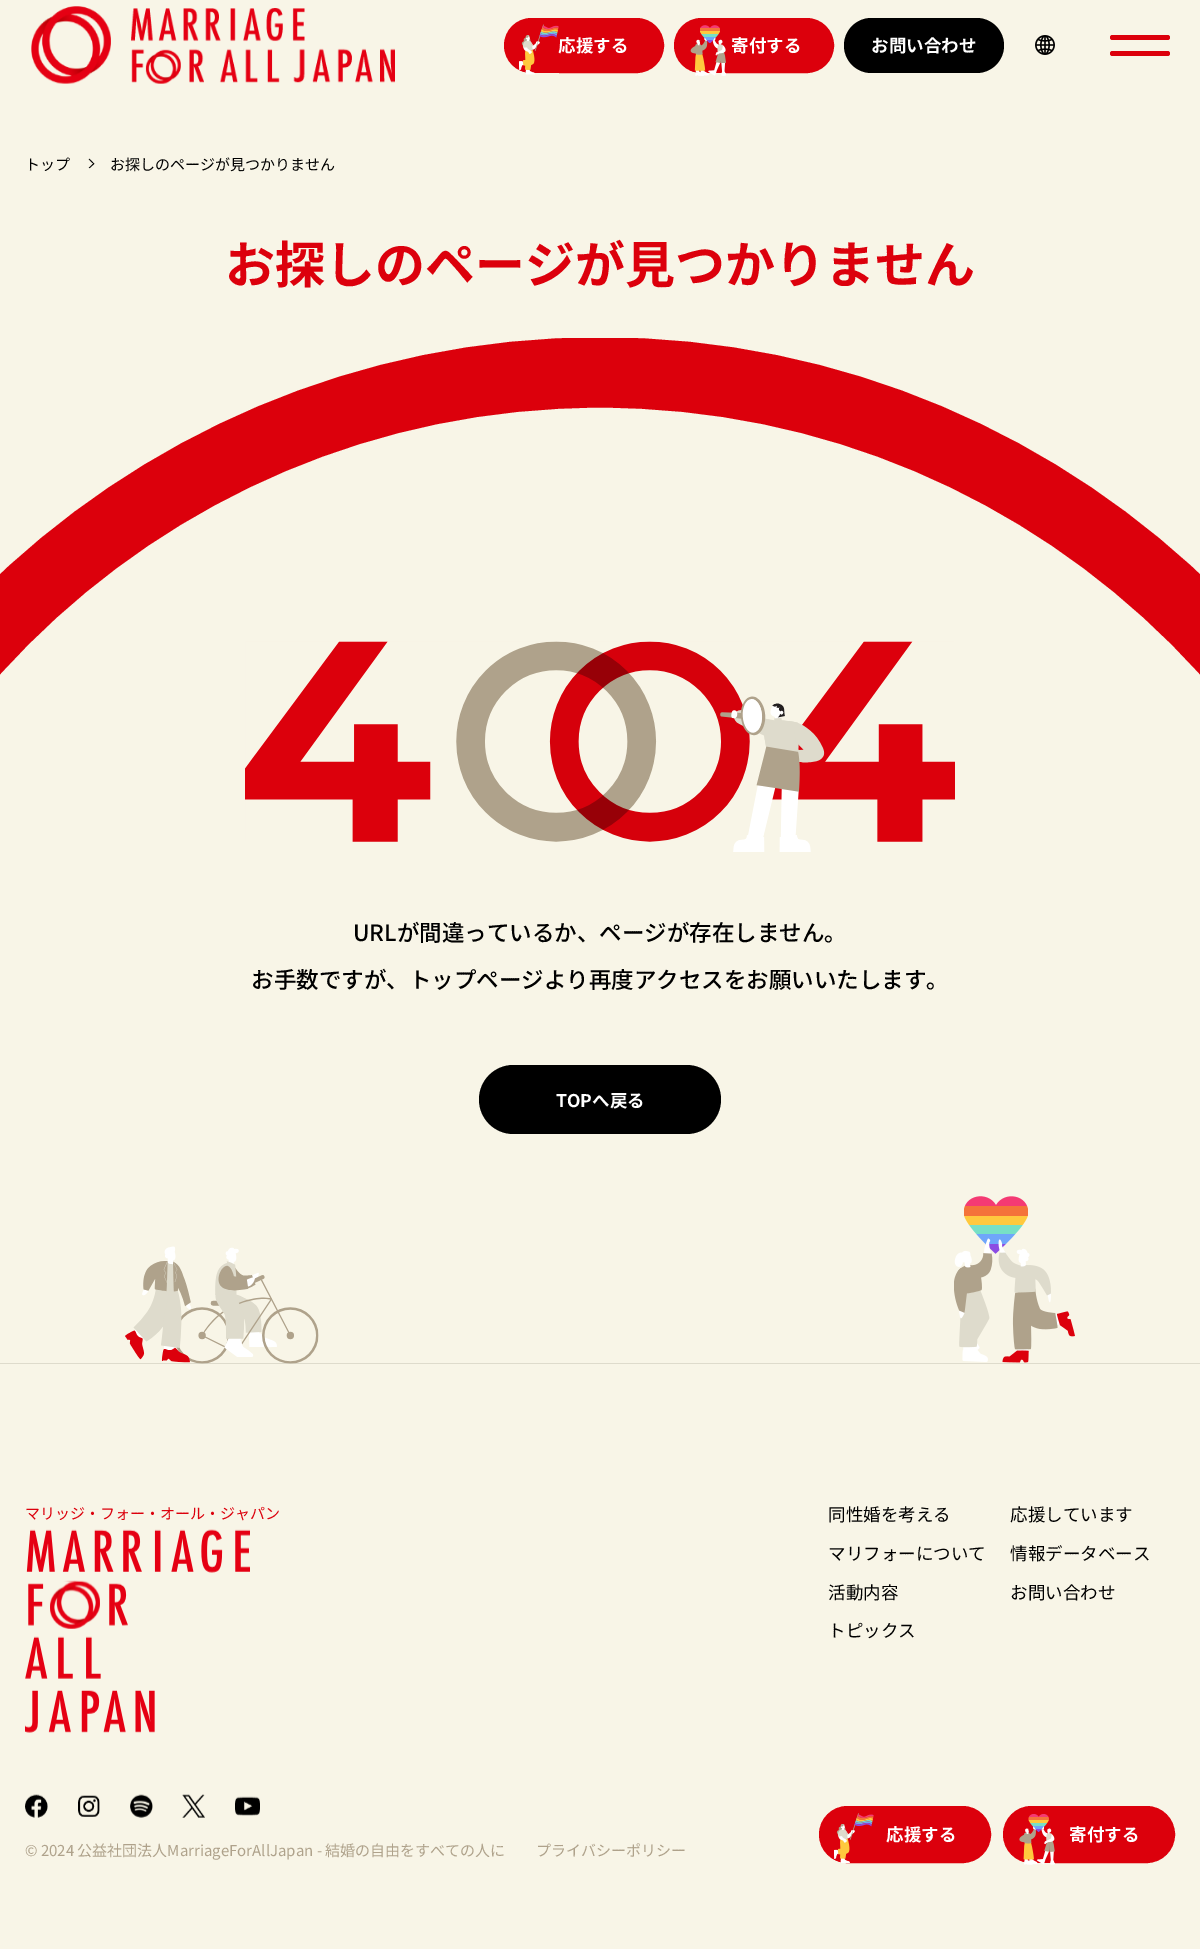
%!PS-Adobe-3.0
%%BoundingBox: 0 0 1200 1949
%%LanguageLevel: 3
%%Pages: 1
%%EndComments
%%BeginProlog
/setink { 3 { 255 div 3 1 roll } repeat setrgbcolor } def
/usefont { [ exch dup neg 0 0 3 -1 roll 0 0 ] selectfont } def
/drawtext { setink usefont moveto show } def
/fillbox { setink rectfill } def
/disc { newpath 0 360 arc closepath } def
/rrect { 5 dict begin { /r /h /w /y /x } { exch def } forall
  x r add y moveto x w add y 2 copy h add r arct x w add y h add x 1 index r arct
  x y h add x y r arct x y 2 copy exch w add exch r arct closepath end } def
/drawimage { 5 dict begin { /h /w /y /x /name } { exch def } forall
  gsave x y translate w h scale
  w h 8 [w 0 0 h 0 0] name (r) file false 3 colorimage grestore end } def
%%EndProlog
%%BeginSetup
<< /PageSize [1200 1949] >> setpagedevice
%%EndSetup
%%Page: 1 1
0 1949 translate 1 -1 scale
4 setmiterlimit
0 0 1200 1949 248 245 231 fillbox
(assets/img1.rgb) 31 6 364 78 drawimage
220 0 12 setink
506 20 156 51 25.5 rrect gsave fill grestore
4 setlinewidth
stroke
(応援する) 558 52 /NotoSansJP-Bold 17.5 255 255 255 drawtext
(assets/img2.rgb) 519 24 40 51 drawimage
220 0 12 setink
676 20 156 51 25.5 rrect gsave fill grestore
stroke
(assets/img3.rgb) 690 25 36 51 drawimage
(寄付する) 731 52 /NotoSansJP-Bold 17.5 255 255 255 drawtext
0 0 0 setink
844 18 160 55 27.5 rrect fill
(お問い合わせ) 871 52 /NotoSansJP-Bold 17.5 255 255 255 drawtext
(assets/img4.rgb) 1035 35 20 20 drawimage
220 0 12 setink
1110 35 60 5 2.5 rrect fill
1110 51 60 5 2.5 rrect fill
(トップ) 25 170 /NotoSansJP-Regular 15 0 0 0 drawtext
(assets/img5.rgb) 88 158 7 11 drawimage
(お探しのページが見つかりません) 110 170 /NotoSansJP-Regular 15 0 0 0 drawtext
(お探しのページが見つかりません) 225 283 /NotoSansJP-Bold 50 220 0 12 drawtext
gsave
0 338 1200 342 rectclip
70.3 setlinewidth
600 1216 843.5 disc stroke
grestore
(assets/img6.rgb) 245 641 710 211 drawimage
(URLが間違っているか、ページが存在しません。) 353 941 /NotoSansJP-Medium 22.5 0 0 0 drawtext
(お手数ですが、トップページより再度アクセスをお願いいたします。) 251 988 /NotoSansJP-Medium 22.5 0 0 0 drawtext
479 1065 242 69 34.5 rrect fill
(TOPへ戻る) 556 1107 /NotoSansJP-Bold 17.5 255 255 255 drawtext
0 1363 1200 1 222 219 204 fillbox
(assets/img7.rgb) 125 1246 194 118 drawimage
(assets/img8.rgb) 954 1196 121 167 drawimage
(マリッジ・フォー・オール・ジャパン) 25 1519 /NotoSansJP-Regular 15 220 0 12 drawtext
(assets/img9.rgb) 25 1529 225 204 drawimage
(同性婚を考える) 828 1521 /NotoSansJP-Regular 17.5 0 0 0 drawtext
(マリフォーについて) 828 1560 /NotoSansJP-Regular 17.5 0 0 0 drawtext
(活動内容) 828 1599 /NotoSansJP-Regular 17.5 0 0 0 drawtext
(トピックス) 828 1637 /NotoSansJP-Regular 17.5 0 0 0 drawtext
(応援しています) 1010 1521 /NotoSansJP-Regular 17.5 0 0 0 drawtext
(情報データベース) 1010 1560 /NotoSansJP-Regular 17.5 0 0 0 drawtext
(お問い合わせ) 1010 1599 /NotoSansJP-Regular 17.5 0 0 0 drawtext
(assets/img10.rgb) 25 1794 23 24 drawimage
(assets/img11.rgb) 78 1795 22 22 drawimage
(assets/img12.rgb) 130 1794 23 24 drawimage
(assets/img13.rgb) 182 1794 23 24 drawimage
(assets/img14.rgb) 235 1796 25 20 drawimage
220 0 12 setink
821 1808 168 53 26.5 rrect gsave fill grestore
stroke
(assets/img15.rgb) 834 1813 40 50 drawimage
(応援する) 886 1841 /NotoSansJP-Bold 17.5 255 255 255 drawtext
220 0 12 setink
1005 1808 168 53 26.5 rrect gsave fill grestore
stroke
(assets/img16.rgb) 1019 1814 36 51 drawimage
(寄付する) 1069 1841 /NotoSansJP-Bold 17.5 255 255 255 drawtext
(© 2024 公益社団法人MarriageForAllJapan - 結婚の自由をすべての人に) 25 1856 /NotoSansJP-Regular 15 175 162 139 drawtext
(プライバシーポリシー) 536 1856 /NotoSansJP-Regular 15 175 162 139 drawtext
showpage
%%EOF
